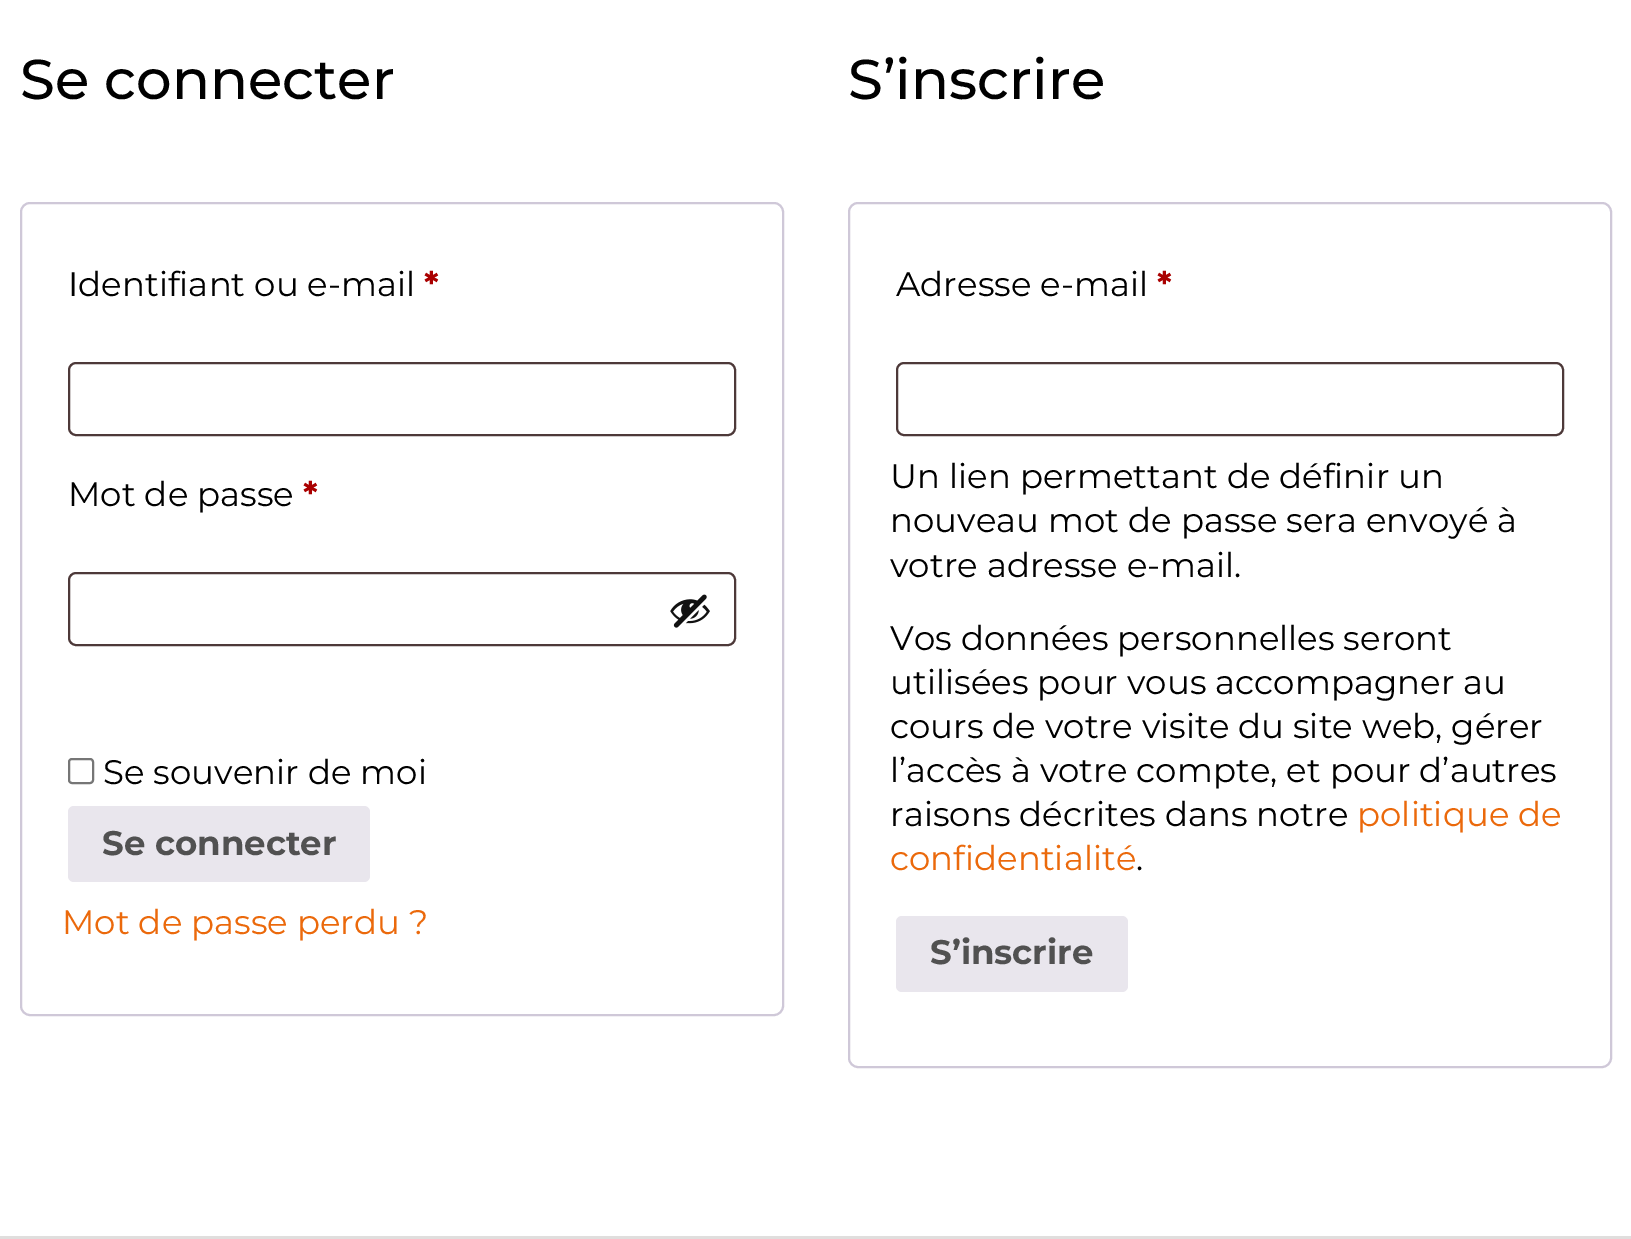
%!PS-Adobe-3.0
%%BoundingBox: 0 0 1631 1239
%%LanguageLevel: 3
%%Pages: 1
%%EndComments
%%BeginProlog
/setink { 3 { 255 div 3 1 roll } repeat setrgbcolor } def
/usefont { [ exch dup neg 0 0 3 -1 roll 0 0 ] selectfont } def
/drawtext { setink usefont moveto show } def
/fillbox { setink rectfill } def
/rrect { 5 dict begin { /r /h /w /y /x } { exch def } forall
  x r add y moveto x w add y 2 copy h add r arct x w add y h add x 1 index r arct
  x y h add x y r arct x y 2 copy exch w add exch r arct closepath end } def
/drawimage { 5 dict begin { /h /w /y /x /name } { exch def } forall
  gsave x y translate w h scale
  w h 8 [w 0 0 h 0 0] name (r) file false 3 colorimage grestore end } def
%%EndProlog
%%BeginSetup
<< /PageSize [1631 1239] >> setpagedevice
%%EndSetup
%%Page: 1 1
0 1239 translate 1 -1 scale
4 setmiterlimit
0 0 1631 1239 255 255 255 fillbox
(Se connecter) 20 99 /Montserrat-Medium 56 0 0 0 drawtext
207 200 216 setink
2 setlinewidth
21 203 762 812 9 rrect stroke
(Identifiant ou e-mail) 68 296 /Montserrat-Regular 34 0 0 0 drawtext
(*) 424 296 /Montserrat-Bold 34 170 0 0 drawtext
77 57 57 setink
69 363 666 72 7 rrect stroke
(Mot de passe) 68 506 /Montserrat-Regular 34 0 0 0 drawtext
(*) 303 506 /Montserrat-Bold 34 170 0 0 drawtext
77 57 57 setink
69 573 666 72 7 rrect stroke
(assets/img1.rgb) 670 594 40 34 drawimage
118 118 118 setink
69 759 24 24 3 rrect stroke
(Se souvenir de moi) 103 784 /Montserrat-Regular 34 0 0 0 drawtext
233 230 237 setink
68 806 302 76 6 rrect fill
(Se connecter) 102 855 /Montserrat-Bold 34 81 81 81 drawtext
(Mot de passe perdu ?) 62 934 /Montserrat-Regular 34 235 105 11 drawtext
(S’inscrire) 848 99 /Montserrat-Medium 56 0 0 0 drawtext
207 200 216 setink
849 203 762 864 9 rrect stroke
(Adresse e-mail) 896 296 /Montserrat-Regular 34 0 0 0 drawtext
(*) 1157 296 /Montserrat-Bold 34 170 0 0 drawtext
77 57 57 setink
897 363 666 72 7 rrect stroke
(Un lien permettant de définir un) 890 488 /Montserrat-Regular 34 0 0 0 drawtext
(nouveau mot de passe sera envoyé à) 890 532 /Montserrat-Regular 34 0 0 0 drawtext
(votre adresse e-mail.) 890 577 /Montserrat-Regular 34 0 0 0 drawtext
(Vos données personnelles seront) 890 650 /Montserrat-Regular 34 0 0 0 drawtext
(utilisées pour vous accompagner au) 890 694 /Montserrat-Regular 34 0 0 0 drawtext
(cours de votre visite du site web, gérer) 890 738 /Montserrat-Regular 34 0 0 0 drawtext
(l’accès à votre compte, et pour d’autres) 890 782 /Montserrat-Regular 34 0 0 0 drawtext
(raisons décrites dans notre) 890 826 /Montserrat-Regular 34 0 0 0 drawtext
(politique de) 1357 826 /Montserrat-Regular 34 235 105 11 drawtext
(confidentialité) 890 870 /Montserrat-Regular 34 235 105 11 drawtext
(.) 1136 870 /Montserrat-Regular 34 0 0 0 drawtext
233 230 237 setink
896 916 232 76 6 rrect fill
(S’inscrire) 930 964 /Montserrat-Bold 34 81 81 81 drawtext
0 1236 1631 3 224 222 221 fillbox
showpage
%%EOF
